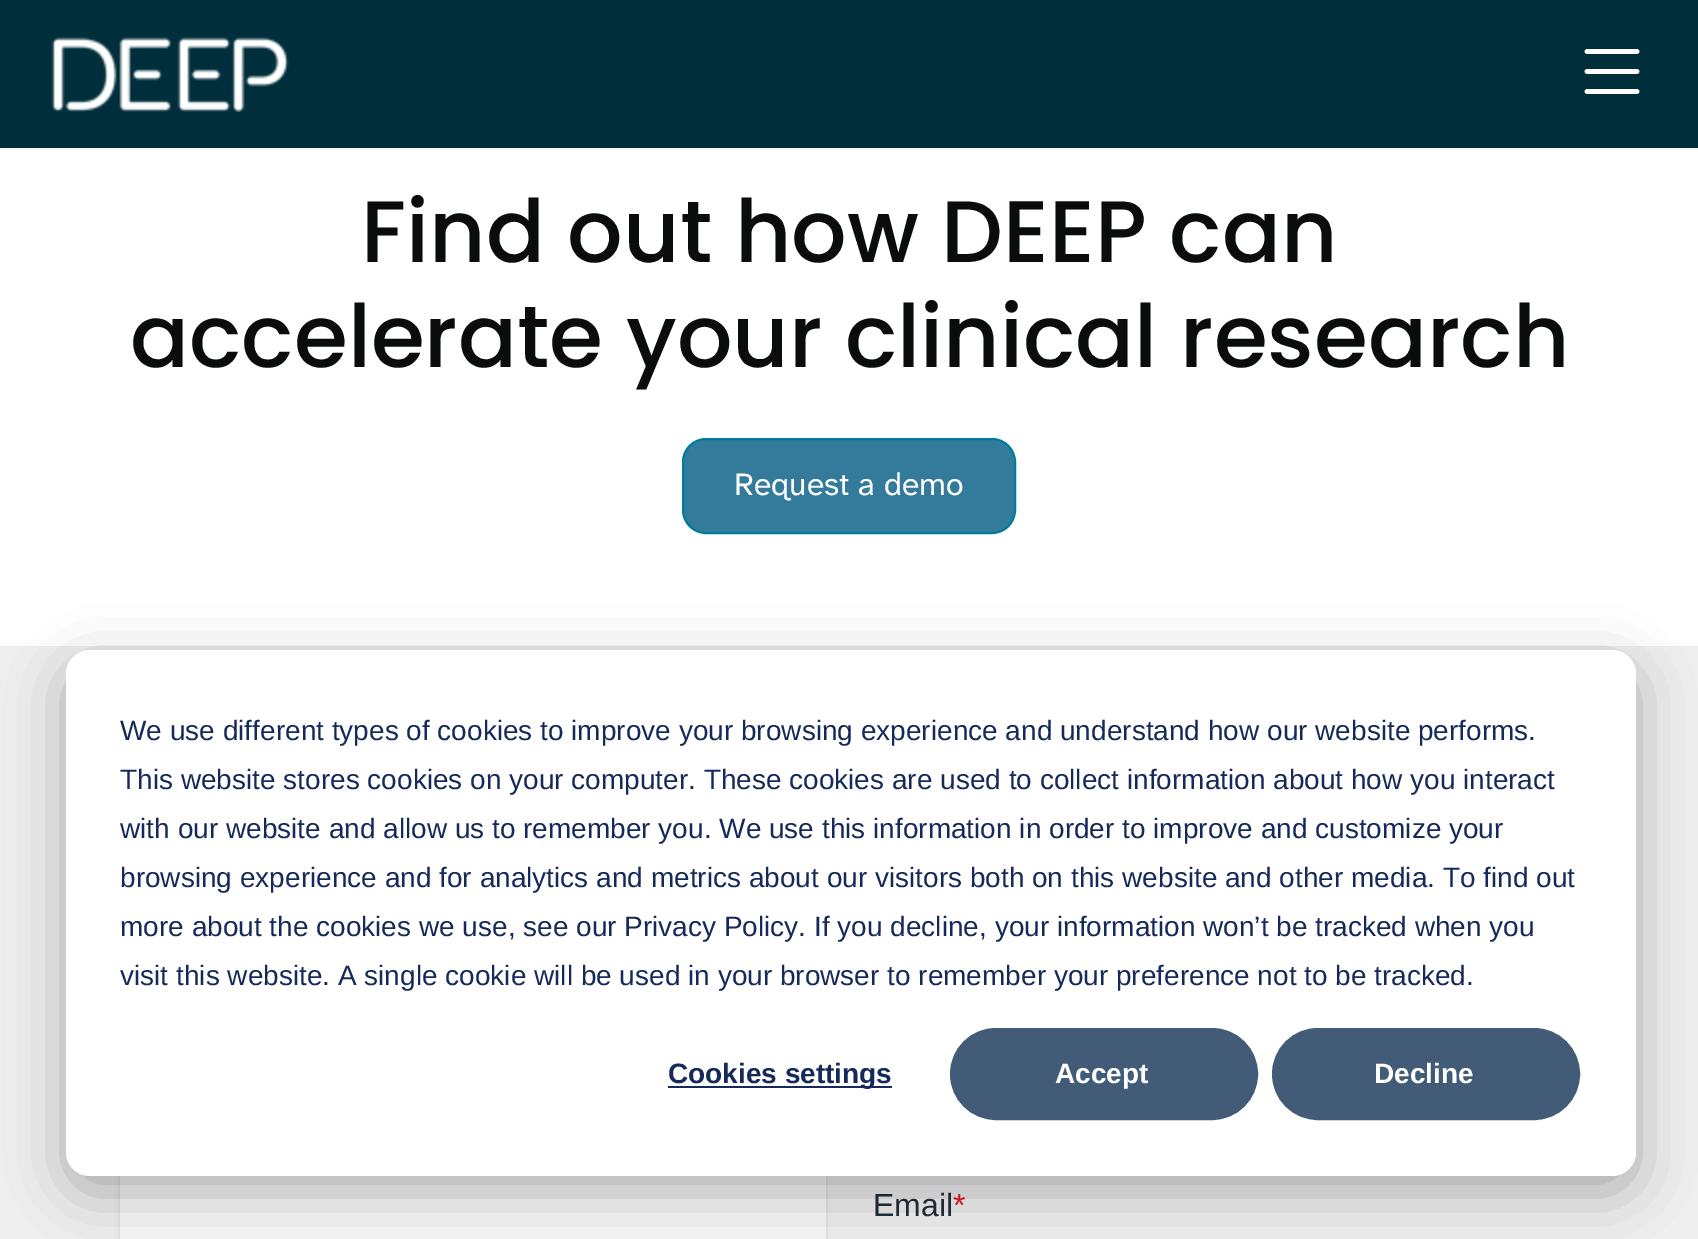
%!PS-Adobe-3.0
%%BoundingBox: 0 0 1698 1239
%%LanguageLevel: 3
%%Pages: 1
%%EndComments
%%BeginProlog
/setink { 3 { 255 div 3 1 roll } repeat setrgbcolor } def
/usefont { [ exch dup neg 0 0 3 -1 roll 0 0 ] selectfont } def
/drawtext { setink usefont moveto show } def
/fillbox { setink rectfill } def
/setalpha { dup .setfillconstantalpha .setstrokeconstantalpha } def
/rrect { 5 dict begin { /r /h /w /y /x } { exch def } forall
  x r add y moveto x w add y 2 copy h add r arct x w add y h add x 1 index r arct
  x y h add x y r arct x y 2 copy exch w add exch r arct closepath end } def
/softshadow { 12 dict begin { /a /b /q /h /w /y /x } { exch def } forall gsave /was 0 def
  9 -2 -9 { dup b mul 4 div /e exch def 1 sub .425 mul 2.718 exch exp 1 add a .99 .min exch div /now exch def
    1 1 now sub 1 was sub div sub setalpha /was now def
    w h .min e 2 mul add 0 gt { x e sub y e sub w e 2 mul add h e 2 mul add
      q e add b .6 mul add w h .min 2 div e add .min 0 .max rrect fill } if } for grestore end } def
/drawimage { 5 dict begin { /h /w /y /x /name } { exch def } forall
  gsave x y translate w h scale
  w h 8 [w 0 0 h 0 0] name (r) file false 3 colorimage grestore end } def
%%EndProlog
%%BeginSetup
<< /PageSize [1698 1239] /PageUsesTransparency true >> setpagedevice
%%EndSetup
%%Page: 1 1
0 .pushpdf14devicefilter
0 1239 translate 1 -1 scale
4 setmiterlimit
0 0 1698 1239 255 255 255 fillbox
0 0 1698 148 0 46 58 fillbox
(assets/img1.rgb) 51 37 238 75 drawimage
(assets/img2.rgb) 1584 49 56 45 drawimage
(Find out how DEEP can) 361 262 /Poppins-Medium 87.2 11 12 12 drawtext
(accelerate your clinical research) 130 367 /Poppins-Medium 87.2 11 12 12 drawtext
52 123 155 setink
683 439 332 94 23 rrect gsave fill grestore
0 124 155 setink
2 setlinewidth
stroke
(Request a demo) 734 495 /AtkinsonHyperlegibleNext-Regular 32 255 255 255 drawtext
0 646 1698 593 238 238 238 fillbox
154 161 177 setink
122 1128 702 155 38 2 0.3 softshadow
120 1126 706 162 40 3 0.3 softshadow
120 1176 706 63 246 246 246 fillbox
(Email) 873 1216 /LiberationSans-Regular 32 33 45 58 drawtext
(*) 953 1216 /LiberationSans-Regular 32 229 21 32 drawtext
0 0 0 setink
66 666 1570 526 24 28 0.28 softshadow
255 255 255 setink
66 650 1570 526 24 rrect fill
(We use different types of cookies to improve your browsing experience and understand how our website performs.) 120 740 /LiberationSans-Regular 28 21 41 90 drawtext
(This website stores cookies on your computer. These cookies are used to collect information about how you interact) 120 789 /LiberationSans-Regular 28 21 41 90 drawtext
(with our website and allow us to remember you. We use this information in order to improve and customize your) 120 838 /LiberationSans-Regular 28 21 41 90 drawtext
(browsing experience and for analytics and metrics about our visitors both on this website and other media. To find out) 120 887 /LiberationSans-Regular 28 21 41 90 drawtext
(more about the cookies we use, see our Privacy Policy. If you decline, your information won’t be tracked when you) 120 936 /LiberationSans-Regular 28 21 41 90 drawtext
(visit this website. A single cookie will be used in your browser to remember your preference not to be tracked.) 120 985 /LiberationSans-Regular 28 21 41 90 drawtext
668 1086 224 2 21 41 90 fillbox
(Cookies settings) 668 1083 /LiberationSans-Bold 28 21 41 90 drawtext
66 91 118 setink
951 1029 306 90 45 rrect gsave fill grestore
stroke
(Accept) 1055 1083 /LiberationSans-Bold 28 255 255 255 drawtext
66 91 118 setink
1273 1029 306 90 45 rrect gsave fill grestore
stroke
(Decline) 1374 1083 /LiberationSans-Bold 28 255 255 255 drawtext
.poppdf14devicefilter showpage
%%EOF
